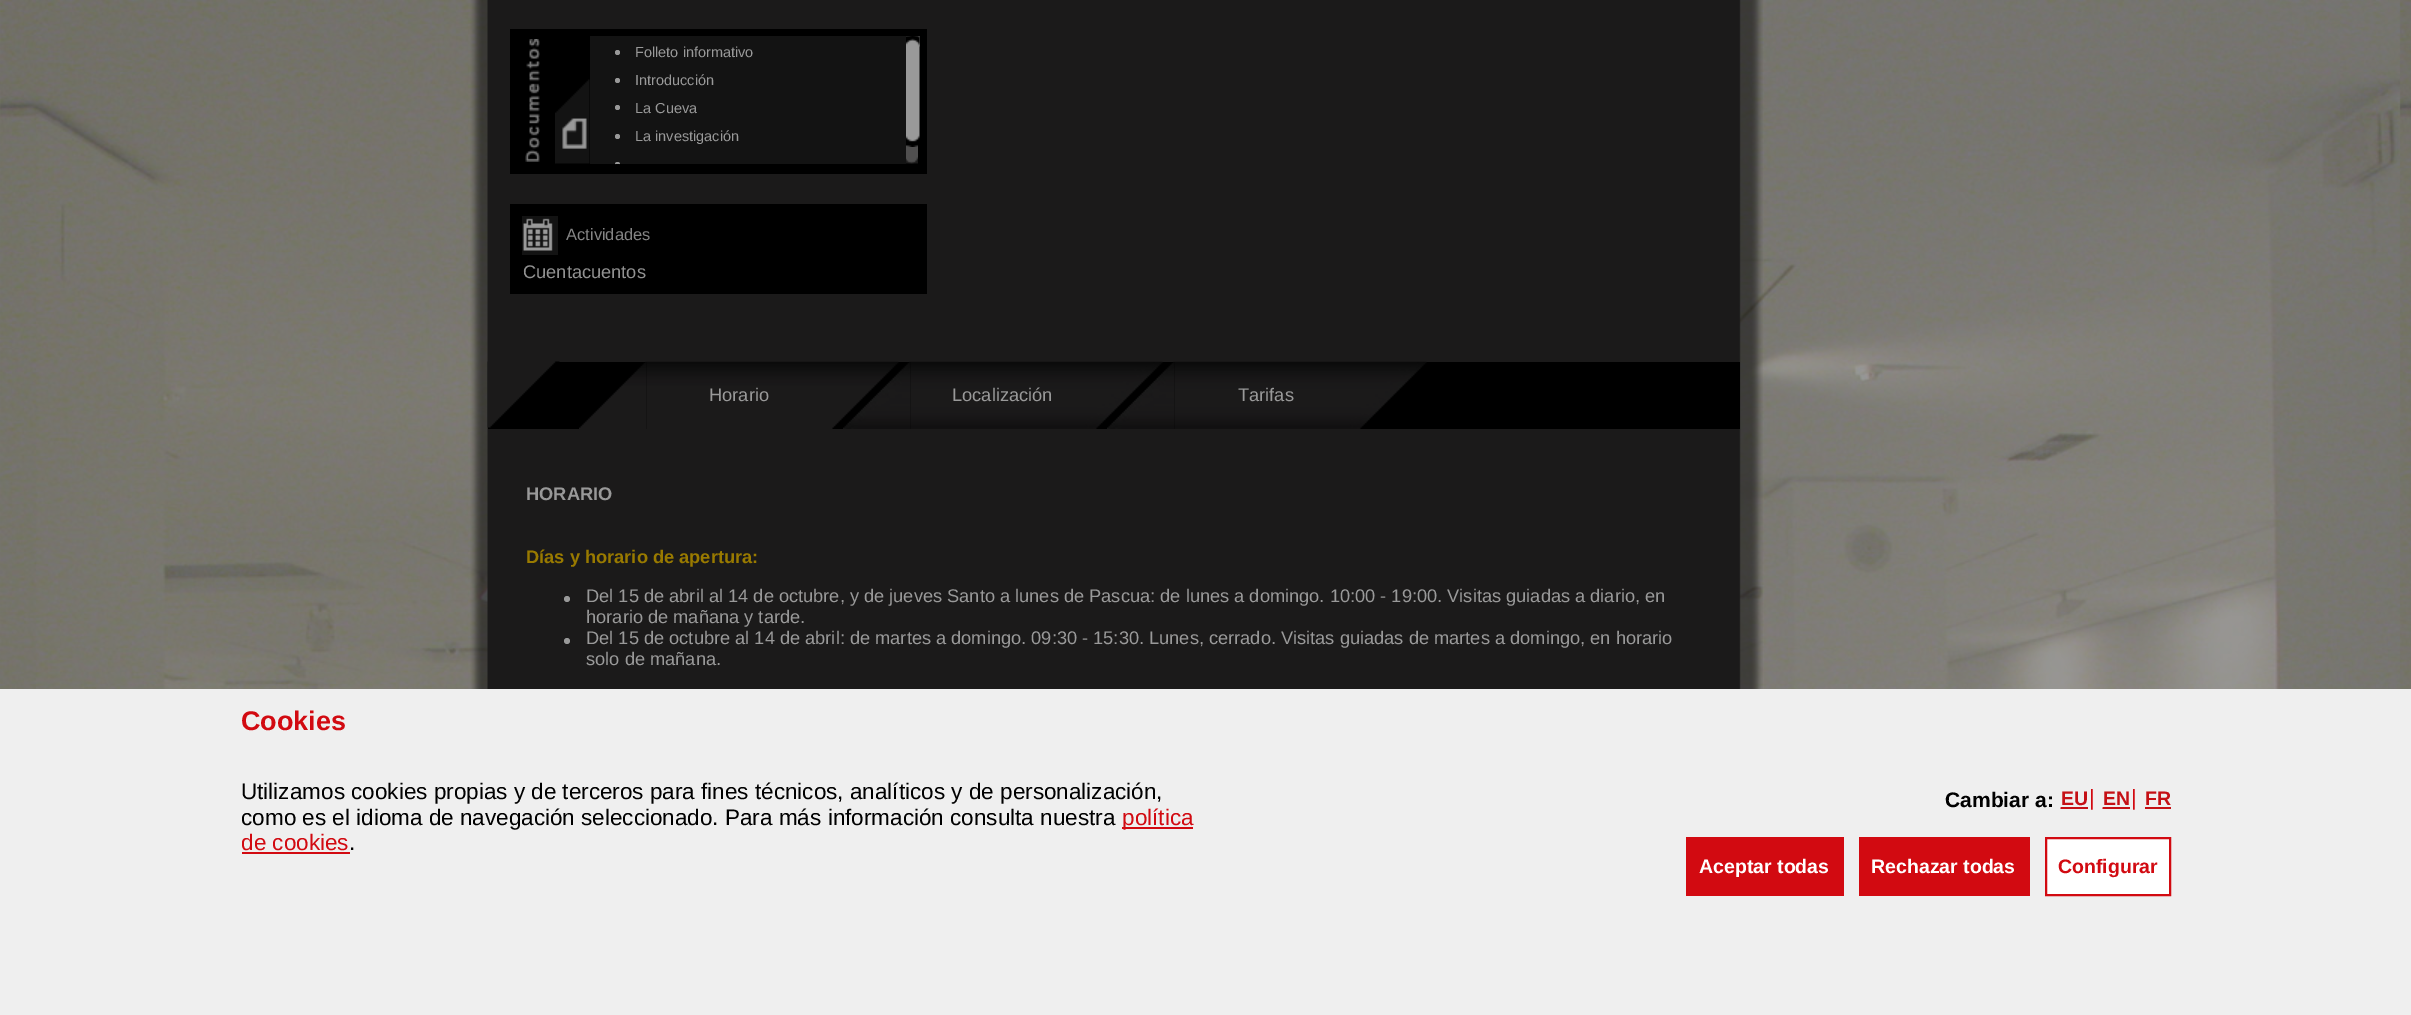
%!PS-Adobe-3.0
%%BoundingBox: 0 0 2411 1015
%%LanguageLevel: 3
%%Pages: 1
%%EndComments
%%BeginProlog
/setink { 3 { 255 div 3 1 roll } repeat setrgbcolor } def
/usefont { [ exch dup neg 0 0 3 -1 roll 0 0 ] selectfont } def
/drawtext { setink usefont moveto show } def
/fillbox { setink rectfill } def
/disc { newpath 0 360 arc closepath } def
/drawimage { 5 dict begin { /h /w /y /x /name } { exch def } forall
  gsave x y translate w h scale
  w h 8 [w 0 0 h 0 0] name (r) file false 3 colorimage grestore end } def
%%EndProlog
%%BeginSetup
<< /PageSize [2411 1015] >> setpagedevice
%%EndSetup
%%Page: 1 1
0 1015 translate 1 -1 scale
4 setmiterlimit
0 0 2411 1015 255 255 255 fillbox
(assets/img1.rgb) 0 0 2411 689 drawimage
(assets/img2.rgb) 470 0 1293 689 drawimage
510 29 417 145 0 0 0 fillbox
(assets/img3.rgb) 525 39 15 123 drawimage
(assets/img4.rgb) 555 79 35 85 drawimage
590 36 316 128 19 19 19 fillbox
153 153 153 setink
617.5 52.5 2.5 disc fill
(Folleto informativo) 635 57 /LiberationSans-Regular 14.5 153 153 153 drawtext
617.5 80.5 2.5 disc fill
(Introducción) 635 85 /LiberationSans-Regular 14.5 153 153 153 drawtext
617.5 107.5 2.5 disc fill
(La Cueva) 635 113 /LiberationSans-Regular 14.5 153 153 153 drawtext
617.5 136.5 2.5 disc fill
(La investigación) 635 141 /LiberationSans-Regular 14.5 153 153 153 drawtext
617.5 162 moveto 619 162 620 163 620 164.5 curveto 620 164 lineto 615 164 lineto 615 164.5 lineto 615 163 616 162 617.5 162 curveto closepath fill
(assets/img5.rgb) 906 144 12 20 drawimage
(assets/img6.rgb) 919 36 1 7 drawimage
(assets/img7.rgb) 906 36 14 111 drawimage
(assets/img8.rgb) 906 36 14 11 drawimage
510 204 417 90 0 0 0 fillbox
(assets/img9.rgb) 522 216 36 39 drawimage
(Actividades) 566 240 /LiberationSans-Regular 16.5 133 133 133 drawtext
(Cuentacuentos) 523 278 /LiberationSans-Regular 18.25 145 145 145 drawtext
488 362 1252 67 0 0 0 fillbox
(assets/img10.rgb) 487 361 73 67 drawimage
(assets/img11.rgb) 579 361 68 68 drawimage
(assets/img12.rgb) 646 361 253 68 drawimage
(Horario) 709 401 /LiberationSans-Regular 18.25 153 153 153 drawtext
(assets/img13.rgb) 843 361 68 68 drawimage
(assets/img14.rgb) 910 361 253 68 drawimage
(Localización) 952 401 /LiberationSans-Regular 18.25 153 153 153 drawtext
(assets/img15.rgb) 1107 361 68 68 drawimage
(assets/img14.rgb) 1174 361 253 68 drawimage
(Tarifas) 1238 401 /LiberationSans-Regular 18.25 153 153 153 drawtext
(HORARIO) 526 500 /LiberationSans-Bold 18.25 153 153 153 drawtext
(Días y horario de apertura:) 526 563 /LiberationSans-Bold 18.25 153 122 0 drawtext
153 153 153 setink
567 599 3 disc fill
(Del 15 de abril al 14 de octubre, y de jueves Santo a lunes de Pascua: de lunes a domingo. 10:00 - 19:00. Visitas guiadas a diario, en) 586 602 /LiberationSans-Regular 18.25 153 153 153 drawtext
(horario de mañana y tarde.) 586 623 /LiberationSans-Regular 18.25 153 153 153 drawtext
567 641 3 disc fill
(Del 15 de octubre al 14 de abril: de martes a domingo. 09:30 - 15:30. Lunes, cerrado. Visitas guiadas de martes a domingo, en horario) 586 644 /LiberationSans-Regular 18.25 153 153 153 drawtext
(solo de mañana.) 586 665 /LiberationSans-Regular 18.25 153 153 153 drawtext
0 689 2411 326 239 239 239 fillbox
(Cookies) 241 730 /LiberationSans-Bold 27 210 10 17 drawtext
(Utilizamos cookies propias y de terceros para fines técnicos, analíticos y de personalización,) 241 799 /LiberationSans-Regular 22.5 0 0 0 drawtext
(como es el idioma de navegación seleccionado. Para más información consulta nuestra) 241 825 /LiberationSans-Regular 22.5 0 0 0 drawtext
1122 827 71 2 210 10 17 fillbox
(política) 1122 825 /LiberationSans-Regular 22.5 210 10 17 drawtext
(de cookies) 241 850 /LiberationSans-Regular 22.5 210 10 17 drawtext
242 852 108 2 210 10 17 fillbox
(.) 349 850 /LiberationSans-Regular 22.5 0 0 0 drawtext
(Cambiar a:) 1945 807 /LiberationSans-Bold 21 0 0 0 drawtext
(EU) 2061 805 /LiberationSans-Bold 19.5 197 16 21 drawtext
1.5 setlinewidth
[1.5 1.5] 0 setdash
2060.5 808 moveto 2087.5 808 lineto stroke
2061 807 27 2 197 16 21 fillbox
(|) 2089 805 /LiberationSans-Regular 22 210 10 17 drawtext
(EN) 2103 805 /LiberationSans-Bold 19.5 197 16 21 drawtext
2102.5 808 moveto 2130 808 lineto stroke
2103 807 27 2 197 16 21 fillbox
(|) 2131 805 /LiberationSans-Regular 22 210 10 17 drawtext
(FR) 2145 805 /LiberationSans-Bold 19.5 197 16 21 drawtext
2145 807 26 2 197 16 21 fillbox
1686 837 158 59 210 10 17 fillbox
(Aceptar todas) 1699 873 /LiberationSans-Bold 19.5 255 255 255 drawtext
1859 837 171 59 210 10 17 fillbox
(Rechazar todas) 1871 873 /LiberationSans-Bold 19.5 255 255 255 drawtext
2046 838 moveto 2170 838 lineto 2170 895 lineto 2046 895 lineto closepath gsave fill grestore
210 10 17 setink
2 setlinewidth
[] 0 setdash
stroke
(Configurar) 2058 873 /LiberationSans-Bold 19.5 210 10 17 drawtext
showpage
%%EOF
